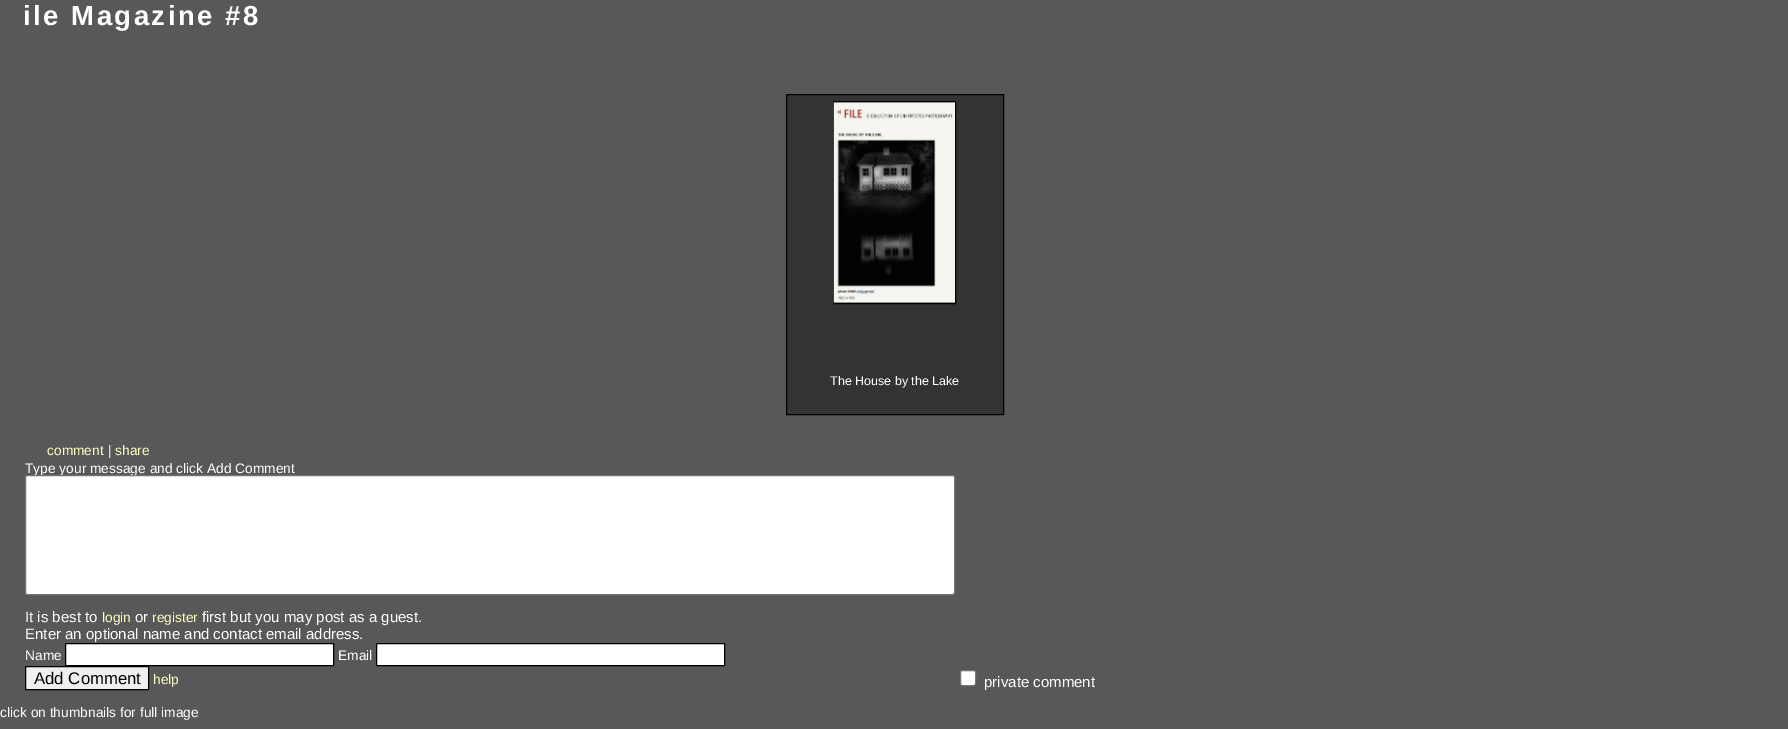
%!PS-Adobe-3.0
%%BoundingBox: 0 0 1788 729
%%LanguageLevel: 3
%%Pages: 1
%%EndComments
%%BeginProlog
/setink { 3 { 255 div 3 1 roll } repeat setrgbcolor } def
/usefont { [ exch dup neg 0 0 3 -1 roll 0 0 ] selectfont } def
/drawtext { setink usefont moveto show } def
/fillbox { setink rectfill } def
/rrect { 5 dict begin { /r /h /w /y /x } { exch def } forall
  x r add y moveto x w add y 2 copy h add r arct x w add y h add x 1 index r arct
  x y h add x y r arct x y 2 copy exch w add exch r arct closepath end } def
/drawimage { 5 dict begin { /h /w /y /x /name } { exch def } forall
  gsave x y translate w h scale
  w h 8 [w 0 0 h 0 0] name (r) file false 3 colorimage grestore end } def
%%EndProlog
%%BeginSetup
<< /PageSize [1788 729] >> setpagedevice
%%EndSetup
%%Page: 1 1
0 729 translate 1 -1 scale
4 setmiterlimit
0 0 1788 729 88 88 88 fillbox
/LiberationSans-Bold 27.5 usefont
255 255 255 setink
23 25 moveto 2.5 0 (ile Magazine #8) ashow
51 51 51 setink
786.5 94.5 moveto 1003.5 94.5 lineto 1003.5 414.5 lineto 786.5 414.5 lineto closepath gsave fill grestore
0 0 0 setink
stroke
833.5 101.5 122 202 rectstroke
(assets/img1.rgb) 833 102 122 201 drawimage
(The House by the Lake) 830 385 /LiberationSans-Regular 12.5 255 255 255 drawtext
(comment) 47 455 /LiberationSans-Regular 13.75 255 255 192 drawtext
(|) 108 455 /LiberationSans-Regular 13.75 255 255 255 drawtext
(share) 115 455 /LiberationSans-Regular 13.75 255 255 192 drawtext
(Type your message and click Add Comment) 25 473 /LiberationSans-Regular 13.75 255 255 255 drawtext
25.5 475.5 929 119 2 rrect gsave fill grestore
118 118 118 setink
stroke
(It is best to) 25 622 /LiberationSans-Regular 15 255 255 255 drawtext
(login) 102 622 /LiberationSans-Regular 13.75 255 255 192 drawtext
(or) 135 622 /LiberationSans-Regular 15 255 255 255 drawtext
(register) 152 622 /LiberationSans-Regular 13.75 255 255 192 drawtext
(first but you may post as a guest.) 202 622 /LiberationSans-Regular 15 255 255 255 drawtext
(Enter an optional name and contact email address.) 25 639 /LiberationSans-Regular 15 255 255 255 drawtext
(Name) 25 660 /LiberationSans-Regular 13.75 255 255 255 drawtext
65.5 643.5 moveto 333.5 643.5 lineto 333.5 665.5 lineto 65.5 665.5 lineto closepath gsave fill grestore
0 0 0 setink
stroke
(Email) 338 660 /LiberationSans-Regular 13.75 255 255 255 drawtext
376.5 643.5 moveto 724.5 643.5 lineto 724.5 665.5 lineto 376.5 665.5 lineto closepath gsave fill grestore
0 0 0 setink
stroke
239 239 239 setink
25.5 666.5 moveto 148.5 666.5 lineto 148.5 689.5 lineto 25.5 689.5 lineto closepath gsave fill grestore
0 0 0 setink
stroke
(Add Comment) 34 684 /LiberationSans-Regular 16.75 0 0 0 drawtext
(help) 153 684 /LiberationSans-Regular 13.75 255 255 192 drawtext
255 255 255 setink
960.5 670.5 15 15 2 rrect gsave fill grestore
118 118 118 setink
stroke
(private comment) 984 687 /LiberationSans-Regular 15 255 255 255 drawtext
(click on thumbnails for full image) 0 717 /LiberationSans-Regular 13.75 255 255 255 drawtext
showpage
%%EOF
